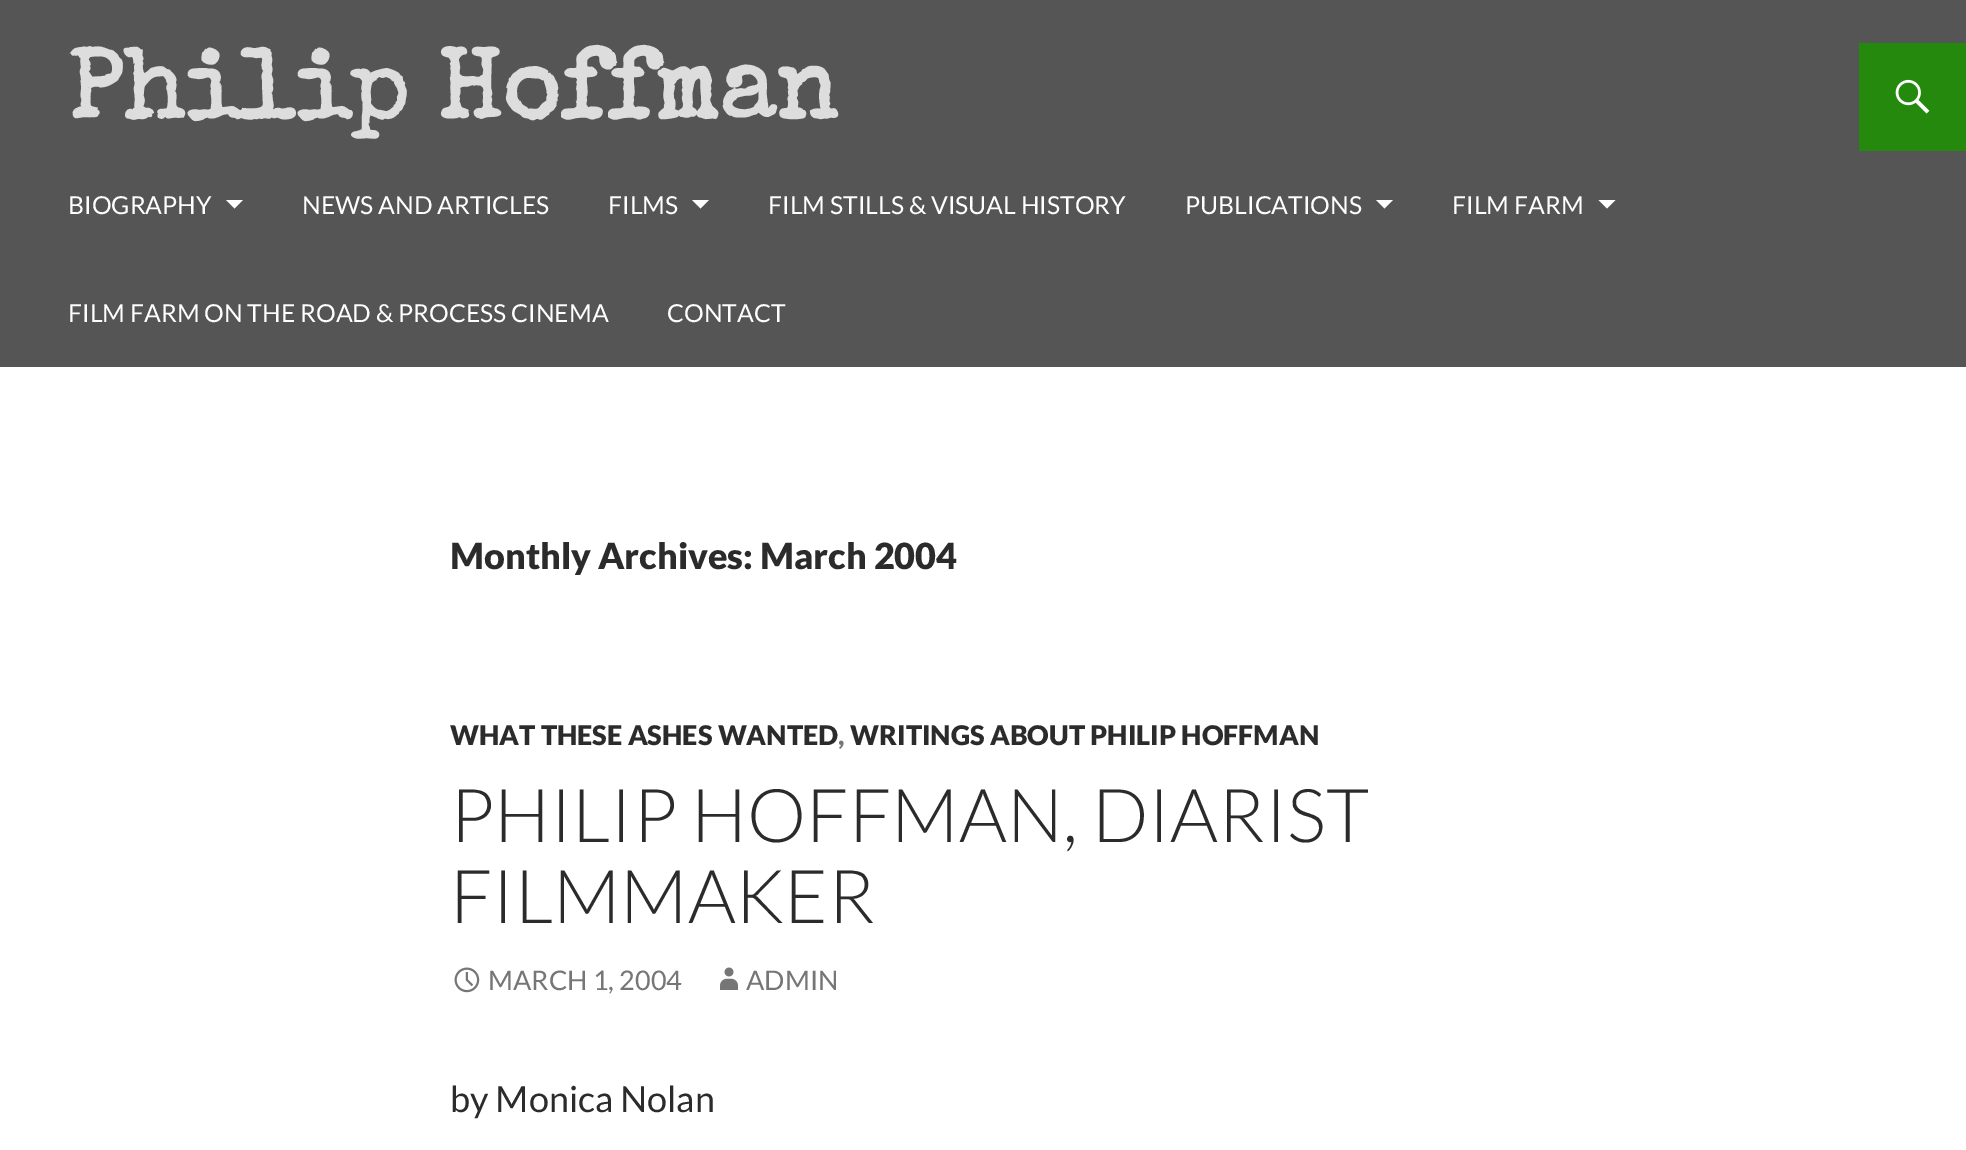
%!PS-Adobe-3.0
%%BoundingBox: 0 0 1966 1150
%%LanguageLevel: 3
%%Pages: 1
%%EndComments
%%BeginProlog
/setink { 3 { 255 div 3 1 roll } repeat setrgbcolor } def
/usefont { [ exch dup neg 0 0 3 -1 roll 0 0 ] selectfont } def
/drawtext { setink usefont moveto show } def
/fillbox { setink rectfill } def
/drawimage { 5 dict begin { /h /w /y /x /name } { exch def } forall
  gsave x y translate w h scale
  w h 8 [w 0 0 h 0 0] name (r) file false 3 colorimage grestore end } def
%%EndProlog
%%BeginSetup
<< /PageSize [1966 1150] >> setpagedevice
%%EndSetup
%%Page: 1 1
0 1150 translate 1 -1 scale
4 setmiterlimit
0 0 1966 1150 255 255 255 fillbox
0 0 1966 367 85 85 85 fillbox
(Philip Hoffman) 68 117 /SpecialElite-Bold 99 221 221 221 drawtext
1859 43 107 108 36 137 13 fillbox
(assets/img1.rgb) 1895 79 35 35 drawimage
(BIOGRAPHY) 68 214 /Lato-Regular 24.75 255 255 255 drawtext
226 200 moveto 234.5 208.5 lineto 243 200 lineto closepath fill
(NEWS AND ARTICLES) 302 214 /Lato-Regular 24.75 255 255 255 drawtext
(FILMS) 608 214 /Lato-Regular 24.75 255 255 255 drawtext
692 200 moveto 700.5 208.5 lineto 709 200 lineto closepath fill
(FILM STILLS & VISUAL HISTORY) 768 214 /Lato-Regular 24.75 255 255 255 drawtext
(PUBLICATIONS) 1185 214 /Lato-Regular 24.75 255 255 255 drawtext
1376 200 moveto 1384.5 208.5 lineto 1393 200 lineto closepath fill
(FILM FARM) 1452 214 /Lato-Regular 24.75 255 255 255 drawtext
1598.5 200 moveto 1607 208.5 lineto 1615.5 200 lineto closepath fill
(FILM FARM ON THE ROAD & PROCESS CINEMA) 68 322 /Lato-Regular 24.75 255 255 255 drawtext
(CONTACT) 667 322 /Lato-Regular 24.75 255 255 255 drawtext
(Monthly Archives: March 2004) 450 569 /Lato-Black 36 43 43 43 drawtext
(WHAT THESE ASHES WANTED) 450 745 /Lato-Black 27 43 43 43 drawtext
(,) 838 745 /Lato-Black 27 118 118 118 drawtext
(WRITINGS ABOUT PHILIP HOFFMAN) 850 745 /Lato-Black 27 43 43 43 drawtext
(PHILIP HOFFMAN, DIARIST) 450 842 /Lato-Light 74.25 43 43 43 drawtext
(FILMMAKER) 450 923 /Lato-Light 74.25 43 43 43 drawtext
(assets/img2.rgb) 454 967 26 26 drawimage
(MARCH 1, 2004) 488 990 /Lato-Regular 27 118 118 118 drawtext
(assets/img3.rgb) 720 967 18 23 drawimage
(ADMIN) 746 990 /Lato-Regular 27 118 118 118 drawtext
(by Monica Nolan) 450 1112 /Lato-Regular 36 43 43 43 drawtext
showpage
%%EOF
